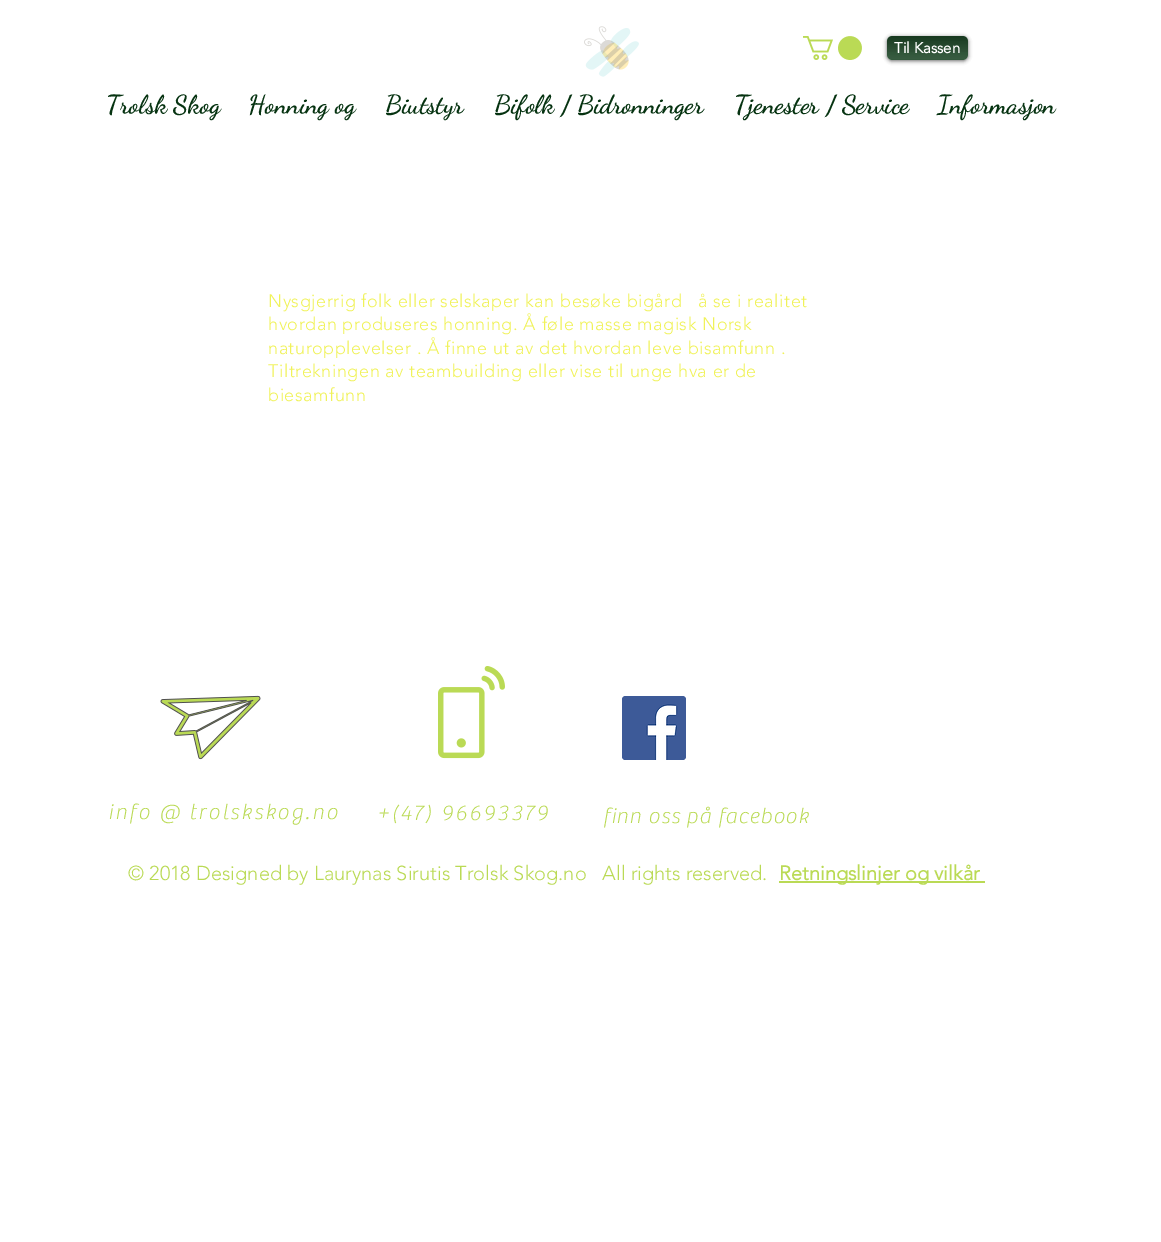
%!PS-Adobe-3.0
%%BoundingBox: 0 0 1161 1242
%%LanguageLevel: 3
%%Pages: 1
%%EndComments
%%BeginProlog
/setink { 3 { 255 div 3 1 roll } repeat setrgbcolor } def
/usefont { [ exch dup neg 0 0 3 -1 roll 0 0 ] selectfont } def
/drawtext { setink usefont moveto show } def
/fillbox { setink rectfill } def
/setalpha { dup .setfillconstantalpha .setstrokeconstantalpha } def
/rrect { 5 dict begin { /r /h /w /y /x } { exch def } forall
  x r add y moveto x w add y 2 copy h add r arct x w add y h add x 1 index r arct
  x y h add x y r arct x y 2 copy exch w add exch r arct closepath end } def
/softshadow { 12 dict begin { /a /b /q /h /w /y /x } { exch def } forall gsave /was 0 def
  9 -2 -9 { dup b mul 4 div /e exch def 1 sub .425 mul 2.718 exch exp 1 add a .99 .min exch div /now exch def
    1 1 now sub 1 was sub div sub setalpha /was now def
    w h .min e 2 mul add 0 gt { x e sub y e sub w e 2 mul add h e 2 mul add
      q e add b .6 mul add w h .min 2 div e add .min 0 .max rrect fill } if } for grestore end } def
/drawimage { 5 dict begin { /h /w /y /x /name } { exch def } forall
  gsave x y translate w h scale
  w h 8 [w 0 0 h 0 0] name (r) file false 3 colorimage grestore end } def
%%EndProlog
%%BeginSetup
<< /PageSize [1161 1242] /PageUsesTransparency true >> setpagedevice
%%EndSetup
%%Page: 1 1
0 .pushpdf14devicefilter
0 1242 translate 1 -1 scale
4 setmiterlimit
0 0 1161 1242 255 255 255 fillbox
(assets/img1.rgb) 584 26 55 51 drawimage
(assets/img2.rgb) 803 36 59 24 drawimage
0 0 0 setink
887 37 81 24 5 2 0.6 softshadow
6 51 17 setink
887 36 81 24 5 rrect fill
(assets/img3.rgb) 887 36 81 16 drawimage
(assets/img4.rgb) 887 36 81 24 drawimage
(Til Kassen) 894 53 /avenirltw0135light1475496-Bold 15 255 255 255 drawtext
(Trolsk Skog) 106 113 /DancingScript-Bold 26 6 51 17 drawtext
(Honning og) 248 113 /DancingScript-Bold 26 6 51 17 drawtext
(Biutstyr) 385 113 /DancingScript-Bold 26 6 51 17 drawtext
(Bifolk / Bidronninger) 494 113 /DancingScript-Bold 26 6 51 17 drawtext
(Tjenester / Service) 734 113 /DancingScript-Bold 26 6 51 17 drawtext
(Informasjon) 937 113 /DancingScript-Bold 26 6 51 17 drawtext
/avenirltw0135light1475496-Light 18 usefont
240 242 90 setink
268 307 moveto 0.55 0 (Nysgjerrig folk eller selskaper kan besøke bigård   å se i realitet) ashow
268 330 moveto 0.55 0 (hvordan produseres honning. Å føle masse magisk Norsk) ashow
268 354 moveto 0.55 0 (naturopplevelser . Å finne ut av det hvordan leve bisamfunn .) ashow
268 377 moveto 0.55 0 (Tiltrekningen av teambuilding eller vise til unge hva er de) ashow
268 401 moveto 0.55 0 (biesamfunn) ashow
(assets/img5.rgb) 160 695 101 65 drawimage
/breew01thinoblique-Thin 22 usefont
186 218 85 setink
108 819 moveto 2.25 0 (info @ trolskskog.no) ashow
(assets/img6.rgb) 438 666 67 93 drawimage
377 820 moveto 2.25 0 (+\(47\) 96693379) ashow
(assets/img7.rgb) 622 696 64 64 drawimage
603 823 moveto 1.1 0 (finn oss på facebook) ashow
(© 2018 Designed by Laurynas Sirutis Trolsk Skog.no   All rights reserved.) 128 880 /avenirltw0135light1475496-Light 20 186 218 85 drawtext
779 881 200 2 186 218 85 fillbox
(Retningslinjer og vilkår) 779 880 /avenirltw0135light1475496-Bold 20 186 218 85 drawtext
979 881 6 2 186 218 85 fillbox
.poppdf14devicefilter showpage
%%EOF
